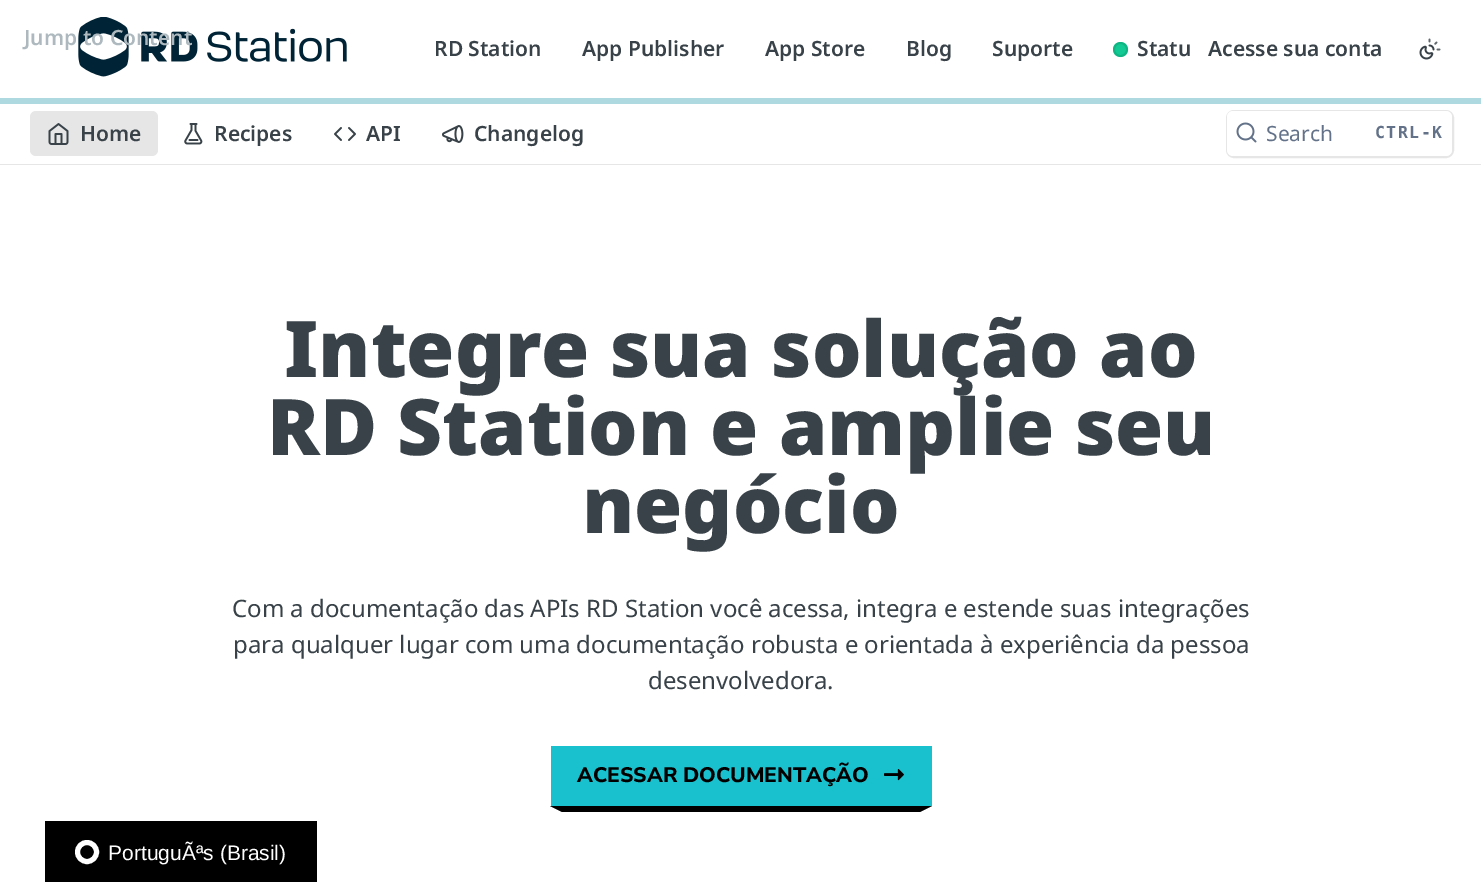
%!PS-Adobe-3.0
%%BoundingBox: 0 0 1481 882
%%LanguageLevel: 3
%%Pages: 1
%%EndComments
%%BeginProlog
/setink { 3 { 255 div 3 1 roll } repeat setrgbcolor } def
/usefont { [ exch dup neg 0 0 3 -1 roll 0 0 ] selectfont } def
/drawtext { setink usefont moveto show } def
/fillbox { setink rectfill } def
/setalpha { dup .setfillconstantalpha .setstrokeconstantalpha } def
/disc { newpath 0 360 arc closepath } def
/rrect { 5 dict begin { /r /h /w /y /x } { exch def } forall
  x r add y moveto x w add y 2 copy h add r arct x w add y h add x 1 index r arct
  x y h add x y r arct x y 2 copy exch w add exch r arct closepath end } def
/drawimage { 5 dict begin { /h /w /y /x /name } { exch def } forall
  gsave x y translate w h scale
  w h 8 [w 0 0 h 0 0] name (r) file false 3 colorimage grestore end } def
%%EndProlog
%%BeginSetup
<< /PageSize [1481 882] /PageUsesTransparency true >> setpagedevice
%%EndSetup
%%Page: 1 1
0 .pushpdf14devicefilter
0 882 translate 1 -1 scale
4 setmiterlimit
0 0 1481 882 255 255 255 fillbox
0 164 1481 1 230 230 230 fillbox
0 98 1481 6 175 217 224 fillbox
(assets/img1.rgb) 78 17 269 60 drawimage
(Jump to Content) 24 45 /NotoSans-SemiBold 21 173 185 190 drawtext
(RD Station) 434 56 /NotoSans-SemiBold 21 56 66 72 drawtext
(App Publisher) 582 56 /NotoSans-SemiBold 21 56 66 72 drawtext
(App Store) 765 56 /NotoSans-SemiBold 21 56 66 72 drawtext
(Blog) 906 56 /NotoSans-SemiBold 21 56 66 72 drawtext
(Suporte) 992 56 /NotoSans-SemiBold 21 56 66 72 drawtext
18 202 147 setink
1120.5 49.5 7.5 disc fill
0.1 setalpha
0 0 0 setink
2 setlinewidth
1120.5 49.5 6.5 disc stroke
1 setalpha
(Statu) 1137 56 /NotoSans-SemiBold 21 56 66 72 drawtext
(Acesse sua conta) 1208 56 /NotoSans-SemiBold 21 56 66 72 drawtext
(assets/img2.rgb) 1419 38 22 22 drawimage
230 230 230 setink
30 111 128 45 6 rrect fill
(assets/img3.rgb) 48 123 21 22 drawimage
(Home) 80 141 /NotoSans-SemiBold 21 56 66 72 drawtext
(assets/img4.rgb) 184 123 19 22 drawimage
(Recipes) 214 141 /NotoSans-SemiBold 21 56 66 72 drawtext
(assets/img5.rgb) 334 127 22 14 drawimage
(API) 366 141 /NotoSans-SemiBold 21 56 66 72 drawtext
(assets/img6.rgb) 442 125 22 18 drawimage
(Changelog) 474 141 /NotoSans-SemiBold 21 56 66 72 drawtext
230 230 230 setink
1227 111 226 46 7 rrect stroke
255 255 255 setink
1227 111 225 45 6 rrect fill
(assets/img7.rgb) 1236 122 21 21 drawimage
(Search) 1266 141 /NotoSans-Regular 21 99 114 136 drawtext
/DejaVuSansMono-Bold 16.5 usefont
1375 138 moveto 1.5 0 (CTRL-K) ashow
(Integre sua solução ao) 284 377 /NotoSans-Black 78 56 66 72 drawtext
(RD Station e amplie seu) 267 455 /NotoSans-Black 78 56 66 72 drawtext
(negócio) 582 533 /NotoSans-Black 78 56 66 72 drawtext
(Com a documentação das APIs RD Station você acessa, integra e estende suas integrações) 232 617 /NotoSans-Regular 24 56 66 72 drawtext
(para qualquer lugar com uma documentação robusta e orientada à experiência da pessoa) 233 653 /NotoSans-Regular 24 56 66 72 drawtext
(desenvolvedora.) 648 689 /NotoSans-Regular 24 56 66 72 drawtext
551 746 381 60 25 193 206 fillbox
(ACESSAR DOCUMENTAÇÃO) 577 782 /NunitoSans-ExtraBold 21 0 0 0 drawtext
(assets/img8.rgb) 884 769 20 12 drawimage
550 806 moveto 932 806 lineto 920 812 lineto 562 812 lineto closepath fill
45 821 272 61 0 0 0 fillbox
255 255 255 setink
5 setlinewidth
87 852 9.5 disc stroke
(PortuguÃªs \(Brasil\)) 108 860 /LiberationSans-Regular 21 255 255 255 drawtext
.poppdf14devicefilter showpage
%%EOF
